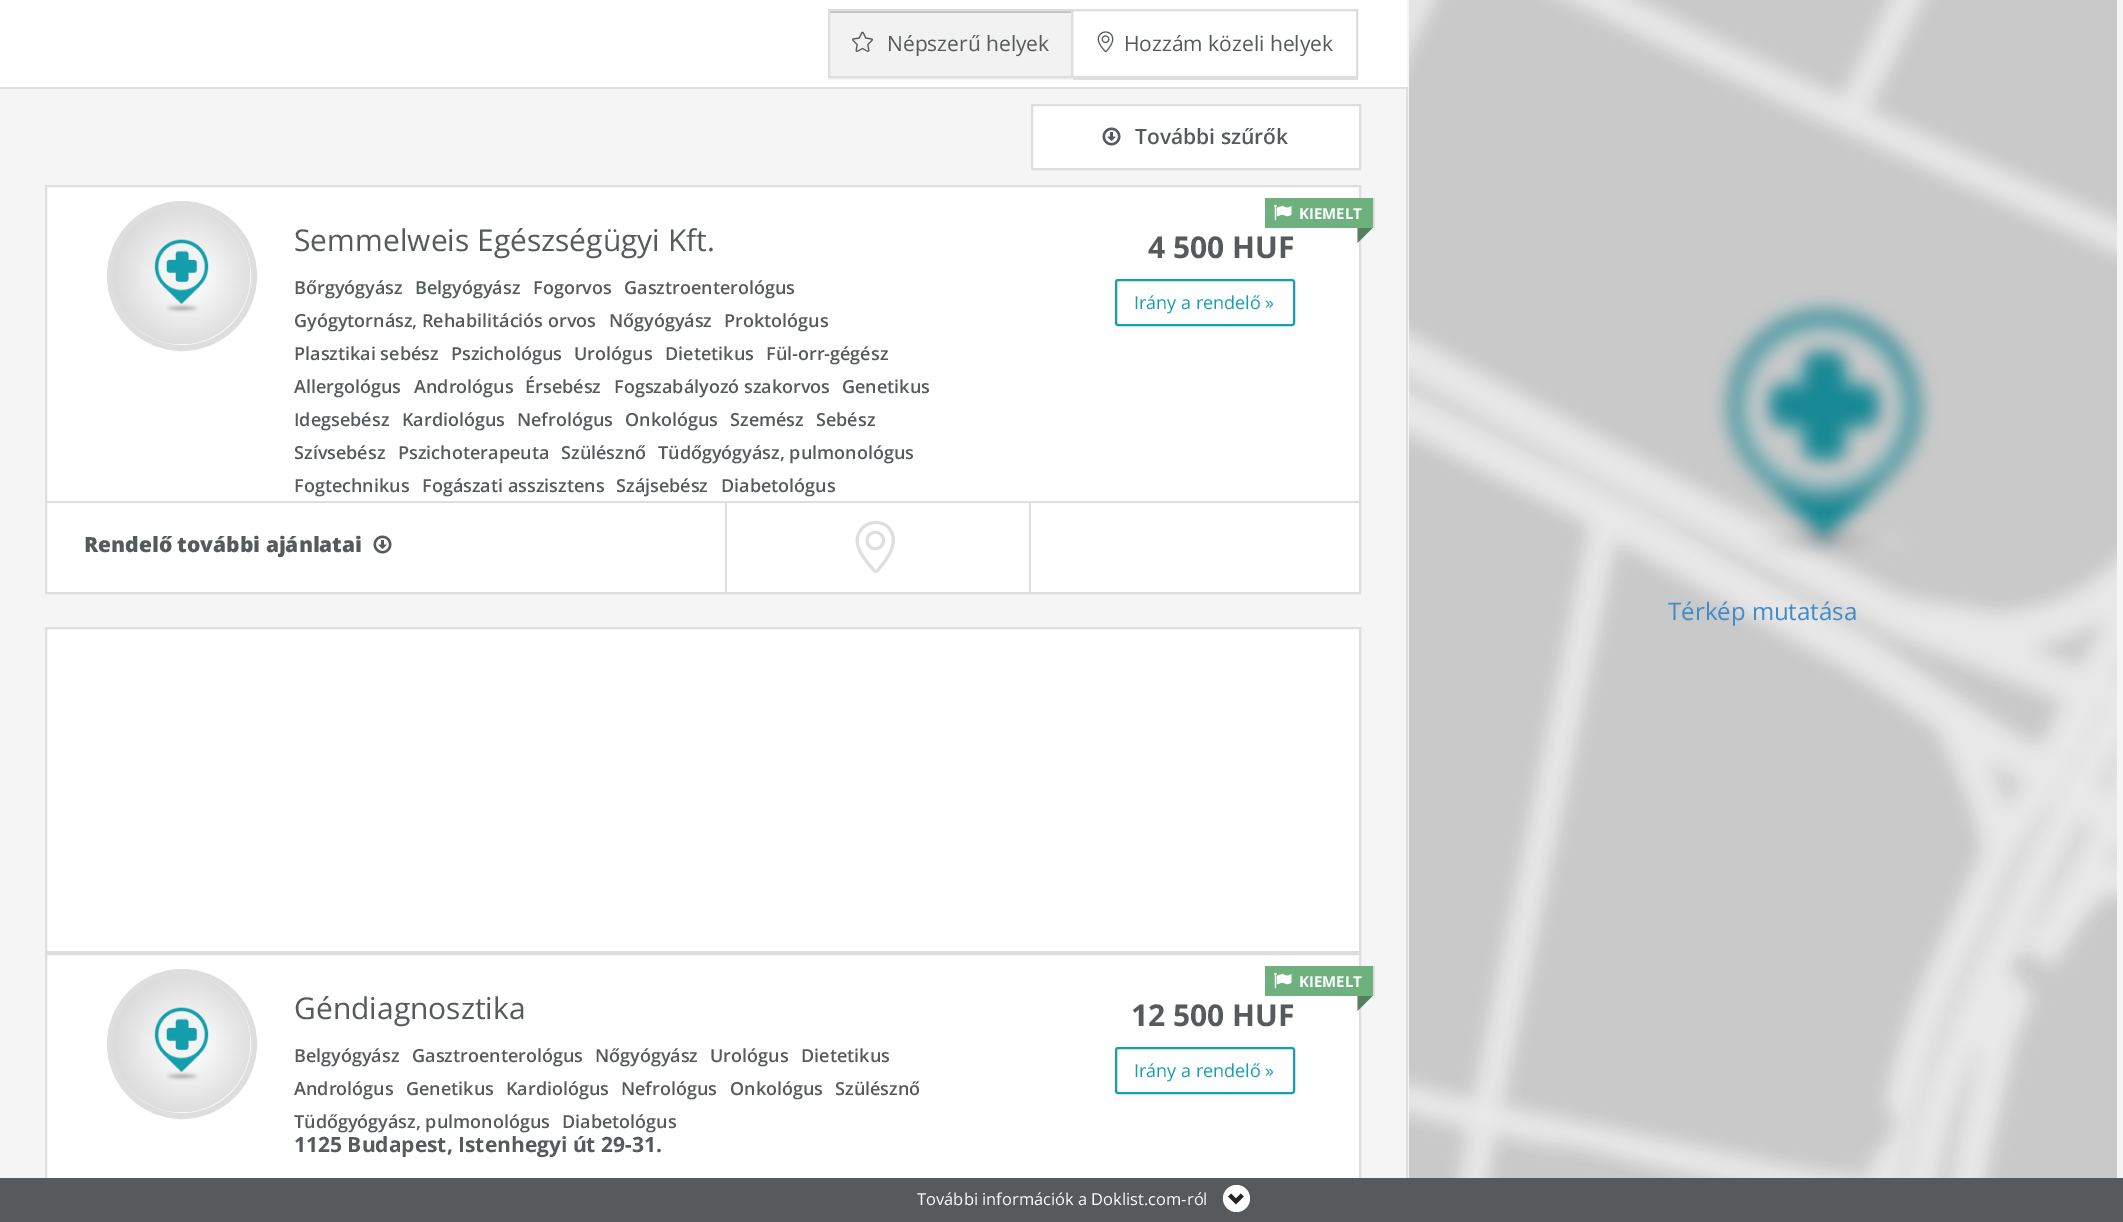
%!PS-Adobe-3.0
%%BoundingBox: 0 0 2123 1222
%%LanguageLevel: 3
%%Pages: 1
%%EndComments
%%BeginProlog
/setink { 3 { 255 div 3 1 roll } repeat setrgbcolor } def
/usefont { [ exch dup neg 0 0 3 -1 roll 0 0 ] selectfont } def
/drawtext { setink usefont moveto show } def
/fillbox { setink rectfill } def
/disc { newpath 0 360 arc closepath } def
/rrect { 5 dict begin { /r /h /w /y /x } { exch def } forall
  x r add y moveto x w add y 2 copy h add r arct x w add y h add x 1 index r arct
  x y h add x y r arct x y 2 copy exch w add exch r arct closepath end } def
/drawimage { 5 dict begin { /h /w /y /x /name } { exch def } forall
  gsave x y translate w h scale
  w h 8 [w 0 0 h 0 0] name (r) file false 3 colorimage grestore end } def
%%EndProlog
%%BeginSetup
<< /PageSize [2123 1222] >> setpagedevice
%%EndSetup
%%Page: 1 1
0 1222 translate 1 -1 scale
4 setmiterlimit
0 0 2123 1222 245 245 245 fillbox
0 0 1407 87 255 255 255 fillbox
222 222 222 setink
1071 78 moveto 1071 80 lineto 1358 80 lineto 1358 11 lineto 1358 78 lineto closepath fill
2 setlinewidth
1072 10 285 67 rectstroke
245 245 245 setink
828 78 moveto 828 80 lineto 1073 80 lineto 1073 11 lineto 1072 11 lineto 1072 78 lineto closepath fill
830 13 241 63 242 242 242 fillbox
830 11 241 2 194 194 194 fillbox
222 222 222 setink
829 10 243 67 rectstroke
(assets/img1.rgb) 852 31 21 21 drawimage
(Népszerű helyek) 887 51 /OpenSans-Regular 21 86 90 92 drawtext
(assets/img2.rgb) 1097 31 17 22 drawimage
(Hozzám közeli helyek) 1124 51 /OpenSans-Regular 21 86 90 92 drawtext
0 87 1407 2 222 222 222 fillbox
1406 87 2 1091 222 222 222 fillbox
255 255 255 setink
1032 105 moveto 1360 105 lineto 1360 169 lineto 1032 169 lineto closepath gsave fill grestore
222 222 222 setink
stroke
(assets/img3.rgb) 1102 127 19 19 drawimage
(További szűrők) 1135 144 /OpenSans-SemiBold 21 86 90 92 drawtext
255 255 255 setink
46 186 moveto 1360 186 lineto 1360 593 lineto 46 593 lineto closepath gsave fill grestore
222 222 222 setink
stroke
1265 198 108 30 111 176 127 fillbox
1373 198 2 30 222 222 222 fillbox
(assets/img4.rgb) 1274 204 18 17 drawimage
(KIEMELT) 1299 219 /OpenSans-Bold 15 255 255 255 drawtext
80 129 92 setink
1357.5 228 moveto 1372.5 228 lineto 1357.5 243 lineto closepath fill
222 222 222 setink
6 setlinewidth
182 276 72 disc stroke
(assets/img5.rgb) 113 207 138 138 drawimage
(Semmelweis Egészségügyi Kft.) 294 251 /OpenSans-Regular 30 86 90 92 drawtext
(Bőrgyógyász) 294 294 /OpenSans-SemiBold 18 86 90 92 drawtext
(Belgyógyász) 415 294 /OpenSans-SemiBold 18 86 90 92 drawtext
(Fogorvos) 533 294 /OpenSans-SemiBold 18 86 90 92 drawtext
(Gasztroenterológus) 624 294 /OpenSans-SemiBold 18 86 90 92 drawtext
(Gyógytornász, Rehabilitációs orvos) 294 327 /OpenSans-SemiBold 18 86 90 92 drawtext
(Nőgyógyász) 609 327 /OpenSans-SemiBold 18 86 90 92 drawtext
(Proktológus) 724 327 /OpenSans-SemiBold 18 86 90 92 drawtext
(Plasztikai sebész) 294 360 /OpenSans-SemiBold 18 86 90 92 drawtext
(Pszichológus) 451 360 /OpenSans-SemiBold 18 86 90 92 drawtext
(Urológus) 574 360 /OpenSans-SemiBold 18 86 90 92 drawtext
(Dietetikus) 665 360 /OpenSans-SemiBold 18 86 90 92 drawtext
(Fül-orr-gégész) 766 360 /OpenSans-SemiBold 18 86 90 92 drawtext
(Allergológus) 294 393 /OpenSans-SemiBold 18 86 90 92 drawtext
(Andrológus) 414 393 /OpenSans-SemiBold 18 86 90 92 drawtext
(Érsebész) 525 393 /OpenSans-SemiBold 18 86 90 92 drawtext
(Fogszabályozó szakorvos) 614 393 /OpenSans-SemiBold 18 86 90 92 drawtext
(Genetikus) 842 393 /OpenSans-SemiBold 18 86 90 92 drawtext
(Idegsebész) 294 426 /OpenSans-SemiBold 18 86 90 92 drawtext
(Kardiológus) 402 426 /OpenSans-SemiBold 18 86 90 92 drawtext
(Nefrológus) 517 426 /OpenSans-SemiBold 18 86 90 92 drawtext
(Onkológus) 625 426 /OpenSans-SemiBold 18 86 90 92 drawtext
(Szemész) 730 426 /OpenSans-SemiBold 18 86 90 92 drawtext
(Sebész) 816 426 /OpenSans-SemiBold 18 86 90 92 drawtext
(Szívsebész) 294 459 /OpenSans-SemiBold 18 86 90 92 drawtext
(Pszichoterapeuta) 398 459 /OpenSans-SemiBold 18 86 90 92 drawtext
(Szülésznő) 561 459 /OpenSans-SemiBold 18 86 90 92 drawtext
(Tüdőgyógyász, pulmonológus) 658 459 /OpenSans-SemiBold 18 86 90 92 drawtext
(Fogtechnikus) 294 492 /OpenSans-SemiBold 18 86 90 92 drawtext
(Fogászati asszisztens) 422 492 /OpenSans-SemiBold 18 86 90 92 drawtext
(Szájsebész) 616 492 /OpenSans-SemiBold 18 86 90 92 drawtext
(Diabetológus) 721 492 /OpenSans-SemiBold 18 86 90 92 drawtext
(4 500 HUF) 1148 258 /OpenSans-Bold 30 86 90 92 drawtext
20 159 174 setink
2 setlinewidth
1116 280 178 45 2 rrect stroke
(Irány a rendelő ») 1134 309 /OpenSans-Regular 18 20 159 174 drawtext
47 501 1312 2 222 222 222 fillbox
(Rendelő további ajánlatai) 84 552 /OpenSans-ExtraBold 21 86 90 92 drawtext
(assets/img3.rgb) 373 535 19 19 drawimage
1029 503 2 90 222 222 222 fillbox
725 503 2 90 222 222 222 fillbox
(assets/img6.rgb) 855 520 40 54 drawimage
255 255 255 setink
46 628 moveto 1360 628 lineto 1360 952 lineto 46 952 lineto closepath gsave fill grestore
222 222 222 setink
stroke
47 955 1312 223 255 255 255 fillbox
222 222 222 setink
46 954 1314 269 rectstroke
1265 966 108 30 111 176 127 fillbox
1373 966 2 30 222 222 222 fillbox
(assets/img4.rgb) 1274 972 18 17 drawimage
(KIEMELT) 1299 987 /OpenSans-Bold 15 255 255 255 drawtext
80 129 92 setink
1357.5 996 moveto 1372.5 996 lineto 1357.5 1011 lineto closepath fill
222 222 222 setink
6 setlinewidth
182 1044 72 disc stroke
(assets/img7.rgb) 113 975 138 138 drawimage
(Géndiagnosztika) 294 1019 /OpenSans-Regular 30 86 90 92 drawtext
(Belgyógyász) 294 1062 /OpenSans-SemiBold 18 86 90 92 drawtext
(Gasztroenterológus) 412 1062 /OpenSans-SemiBold 18 86 90 92 drawtext
(Nőgyógyász) 595 1062 /OpenSans-SemiBold 18 86 90 92 drawtext
(Urológus) 710 1062 /OpenSans-SemiBold 18 86 90 92 drawtext
(Dietetikus) 801 1062 /OpenSans-SemiBold 18 86 90 92 drawtext
(Andrológus) 294 1095 /OpenSans-SemiBold 18 86 90 92 drawtext
(Genetikus) 406 1095 /OpenSans-SemiBold 18 86 90 92 drawtext
(Kardiológus) 506 1095 /OpenSans-SemiBold 18 86 90 92 drawtext
(Nefrológus) 621 1095 /OpenSans-SemiBold 18 86 90 92 drawtext
(Onkológus) 730 1095 /OpenSans-SemiBold 18 86 90 92 drawtext
(Szülésznő) 835 1095 /OpenSans-SemiBold 18 86 90 92 drawtext
(Tüdőgyógyász, pulmonológus) 294 1128 /OpenSans-SemiBold 18 86 90 92 drawtext
(Diabetológus) 562 1128 /OpenSans-SemiBold 18 86 90 92 drawtext
(1125 Budapest, Istenhegyi út 29-31.) 294 1152 /OpenSans-Bold 21 86 90 92 drawtext
(12 500 HUF) 1131 1026 /OpenSans-Bold 30 86 90 92 drawtext
20 159 174 setink
2 setlinewidth
1116 1048 178 45 2 rrect stroke
(Irány a rendelő ») 1134 1077 /OpenSans-Regular 18 20 159 174 drawtext
(assets/img8.rgb) 1409 0 708 1178 drawimage
(Térkép mutatása) 1668 620 /OpenSans-Regular 24 66 139 202 drawtext
0 1178 2123 44 86 90 92 fillbox
(További információk a Doklist.com-ról) 917 1205 /OpenSans-Regular 16.5 255 255 255 drawtext
1236.5 1198.5 13.5 disc fill
(assets/img9.rgb) 1228 1193 16 12 drawimage
showpage
%%EOF
